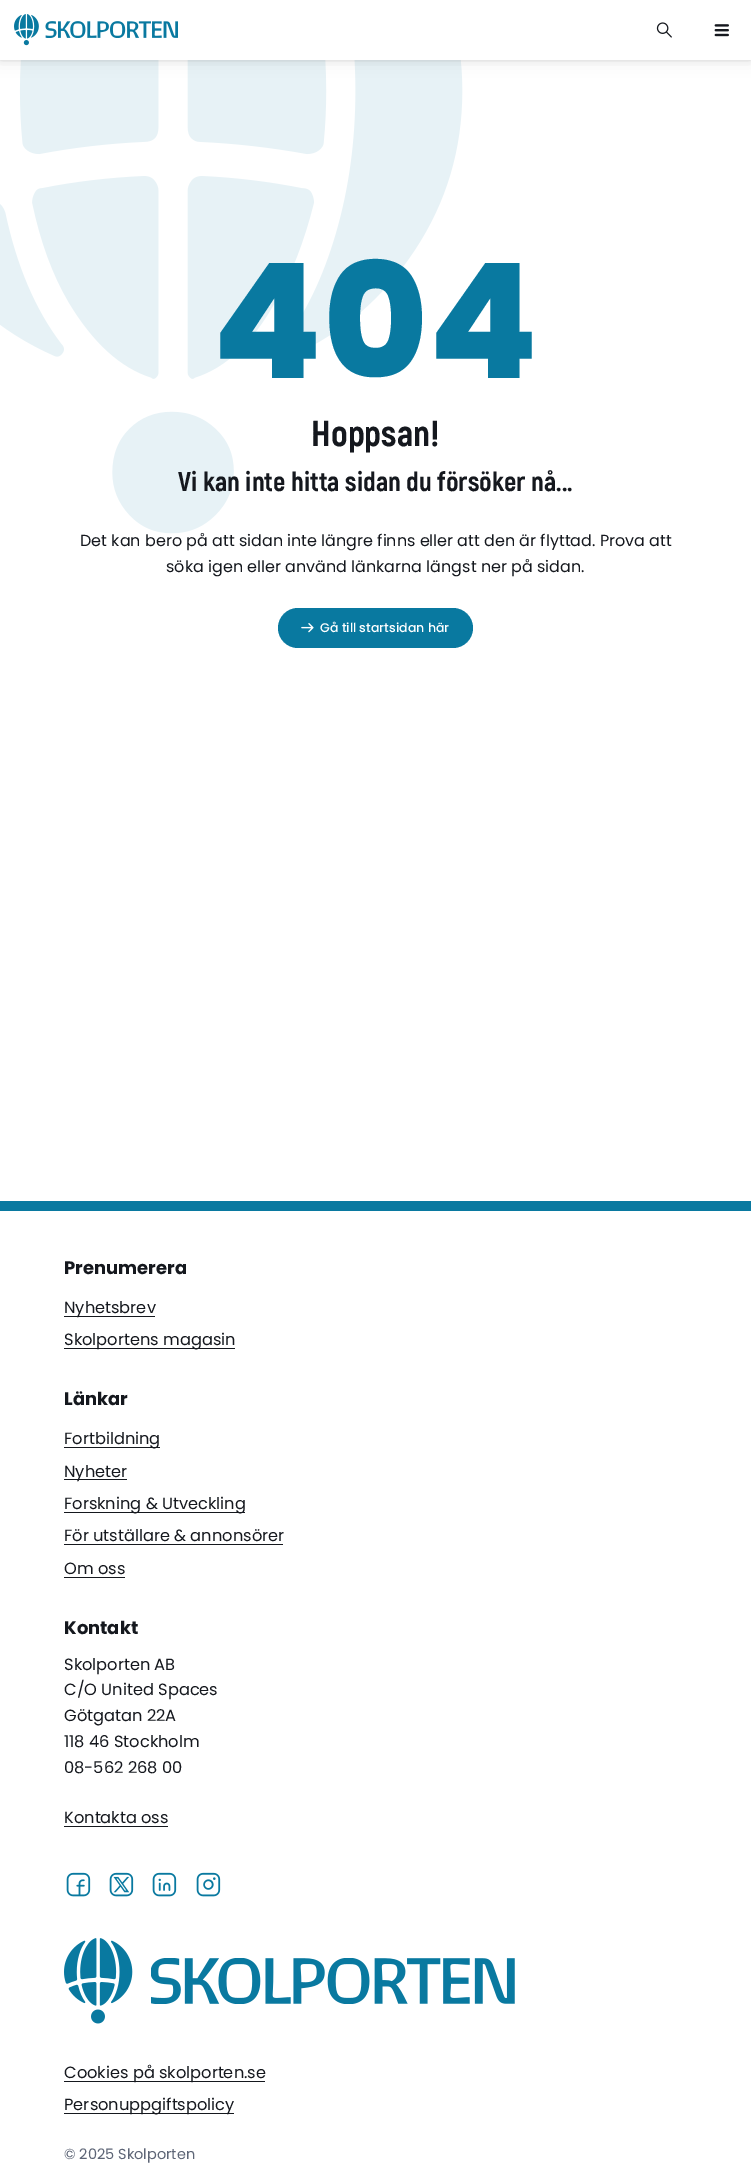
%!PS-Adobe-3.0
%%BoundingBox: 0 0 751 2166
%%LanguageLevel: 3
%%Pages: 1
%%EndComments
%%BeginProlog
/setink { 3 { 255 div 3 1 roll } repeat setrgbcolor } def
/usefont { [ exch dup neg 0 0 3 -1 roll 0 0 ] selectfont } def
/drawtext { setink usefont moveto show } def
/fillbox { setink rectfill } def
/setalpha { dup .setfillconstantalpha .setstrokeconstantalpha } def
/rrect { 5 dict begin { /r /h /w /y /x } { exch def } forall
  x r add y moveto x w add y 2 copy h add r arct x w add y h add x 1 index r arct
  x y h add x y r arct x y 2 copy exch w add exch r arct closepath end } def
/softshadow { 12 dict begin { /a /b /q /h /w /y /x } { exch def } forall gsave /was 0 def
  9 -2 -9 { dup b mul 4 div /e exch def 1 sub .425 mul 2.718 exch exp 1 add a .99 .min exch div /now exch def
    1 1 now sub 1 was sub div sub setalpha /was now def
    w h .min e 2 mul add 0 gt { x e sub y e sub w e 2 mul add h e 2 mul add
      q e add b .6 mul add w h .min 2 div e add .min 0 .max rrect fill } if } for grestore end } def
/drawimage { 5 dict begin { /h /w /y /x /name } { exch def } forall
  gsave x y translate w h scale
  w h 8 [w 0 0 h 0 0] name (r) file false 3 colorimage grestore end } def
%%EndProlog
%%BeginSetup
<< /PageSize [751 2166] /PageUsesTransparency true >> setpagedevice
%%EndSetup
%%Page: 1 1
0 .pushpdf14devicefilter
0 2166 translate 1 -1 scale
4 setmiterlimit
0 0 751 2166 255 255 255 fillbox
(assets/img4.rgb) 0 60 463 474 drawimage
0 0 0 setink
0 0 751 60 0 2.5 0.1 softshadow
0 0 751 60 0 8 0.1 softshadow
0 0 751 60 255 255 255 fillbox
(assets/img1.rgb) 14 14 164 32 drawimage
(assets/img2.rgb) 656 22 16 16 drawimage
(assets/img3.rgb) 714 24 15 13 drawimage
(404) 212 378 /Poppins-ExtraBold 160 9 121 160 drawtext
(Hoppsan!) 311 446 /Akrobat-ExtraBold 36 21 24 30 drawtext
(Vi kan inte hitta sidan du försöker nå...) 178 491 /Akrobat-ExtraBold 27 21 24 30 drawtext
(Det kan bero på att sidan inte längre finns eller att den är flyttad. Prova att) 80 546 /Poppins-Regular 16 21 24 30 drawtext
(söka igen eller använd länkarna längst ner på sidan.) 166 572 /Poppins-Regular 16 21 24 30 drawtext
9 121 160 setink
278 608 195 40 20 rrect fill
(assets/img5.rgb) 301 623 13 10 drawimage
(Gå till startsidan här) 320 632 /Poppins-Medium 12.6 255 255 255 drawtext
0 1201 751 10 9 121 160 fillbox
(Prenumerera) 64 1274 /Poppins-Bold 18 21 24 30 drawtext
64 1316 91 1 21 24 30 fillbox
(Nyhetsbrev) 64 1313 /Poppins-Regular 16.25 21 24 30 drawtext
64 1348 171 1 21 24 30 fillbox
(Skolportens magasin) 64 1345 /Poppins-Regular 16.25 21 24 30 drawtext
(Länkar) 64 1405 /Poppins-Bold 18 21 24 30 drawtext
64 1447 96 1 21 24 30 fillbox
(Fortbildning) 64 1444 /Poppins-Regular 16.25 21 24 30 drawtext
64 1479 63 1 21 24 30 fillbox
(Nyheter) 64 1477 /Poppins-Regular 16.25 21 24 30 drawtext
64 1512 181 1 21 24 30 fillbox
(Forskning & Utveckling) 64 1509 /Poppins-Regular 16.25 21 24 30 drawtext
(För utställare & annonsörer) 64 1541 /Poppins-Regular 16.25 21 24 30 drawtext
64 1544 219 1 21 24 30 fillbox
(Om oss) 64 1574 /Poppins-Regular 16.25 21 24 30 drawtext
64 1577 61 1 21 24 30 fillbox
(Kontakt) 64 1634 /Poppins-Bold 18 21 24 30 drawtext
(Skolporten AB) 64 1670 /Poppins-Regular 16.25 21 24 30 drawtext
(C/O United Spaces) 64 1695 /Poppins-Regular 16.25 21 24 30 drawtext
(Götgatan 22A) 64 1721 /Poppins-Regular 16.25 21 24 30 drawtext
(118 46 Stockholm) 64 1747 /Poppins-Regular 16.25 21 24 30 drawtext
(08-562 268 00) 64 1773 /Poppins-Regular 16.25 21 24 30 drawtext
(Kontakta oss) 64 1823 /Poppins-Regular 16.25 21 24 30 drawtext
64 1826 104 1 21 24 30 fillbox
(assets/img6.rgb) 66 1872 25 25 drawimage
(assets/img7.rgb) 109 1872 25 25 drawimage
(assets/img8.rgb) 152 1872 25 25 drawimage
(assets/img9.rgb) 196 1872 25 25 drawimage
(assets/img10.rgb) 64 1938 451 86 drawimage
64 2081 201 1 21 24 30 fillbox
(Cookies på skolporten.se) 64 2078 /Poppins-Regular 16.25 21 24 30 drawtext
64 2113 170 1 21 24 30 fillbox
(Personuppgiftspolicy) 64 2110 /Poppins-Regular 16.25 21 24 30 drawtext
(© 2025 Skolporten) 64 2159 /Poppins-Regular 14.5 93 101 118 drawtext
.poppdf14devicefilter showpage
%%EOF
